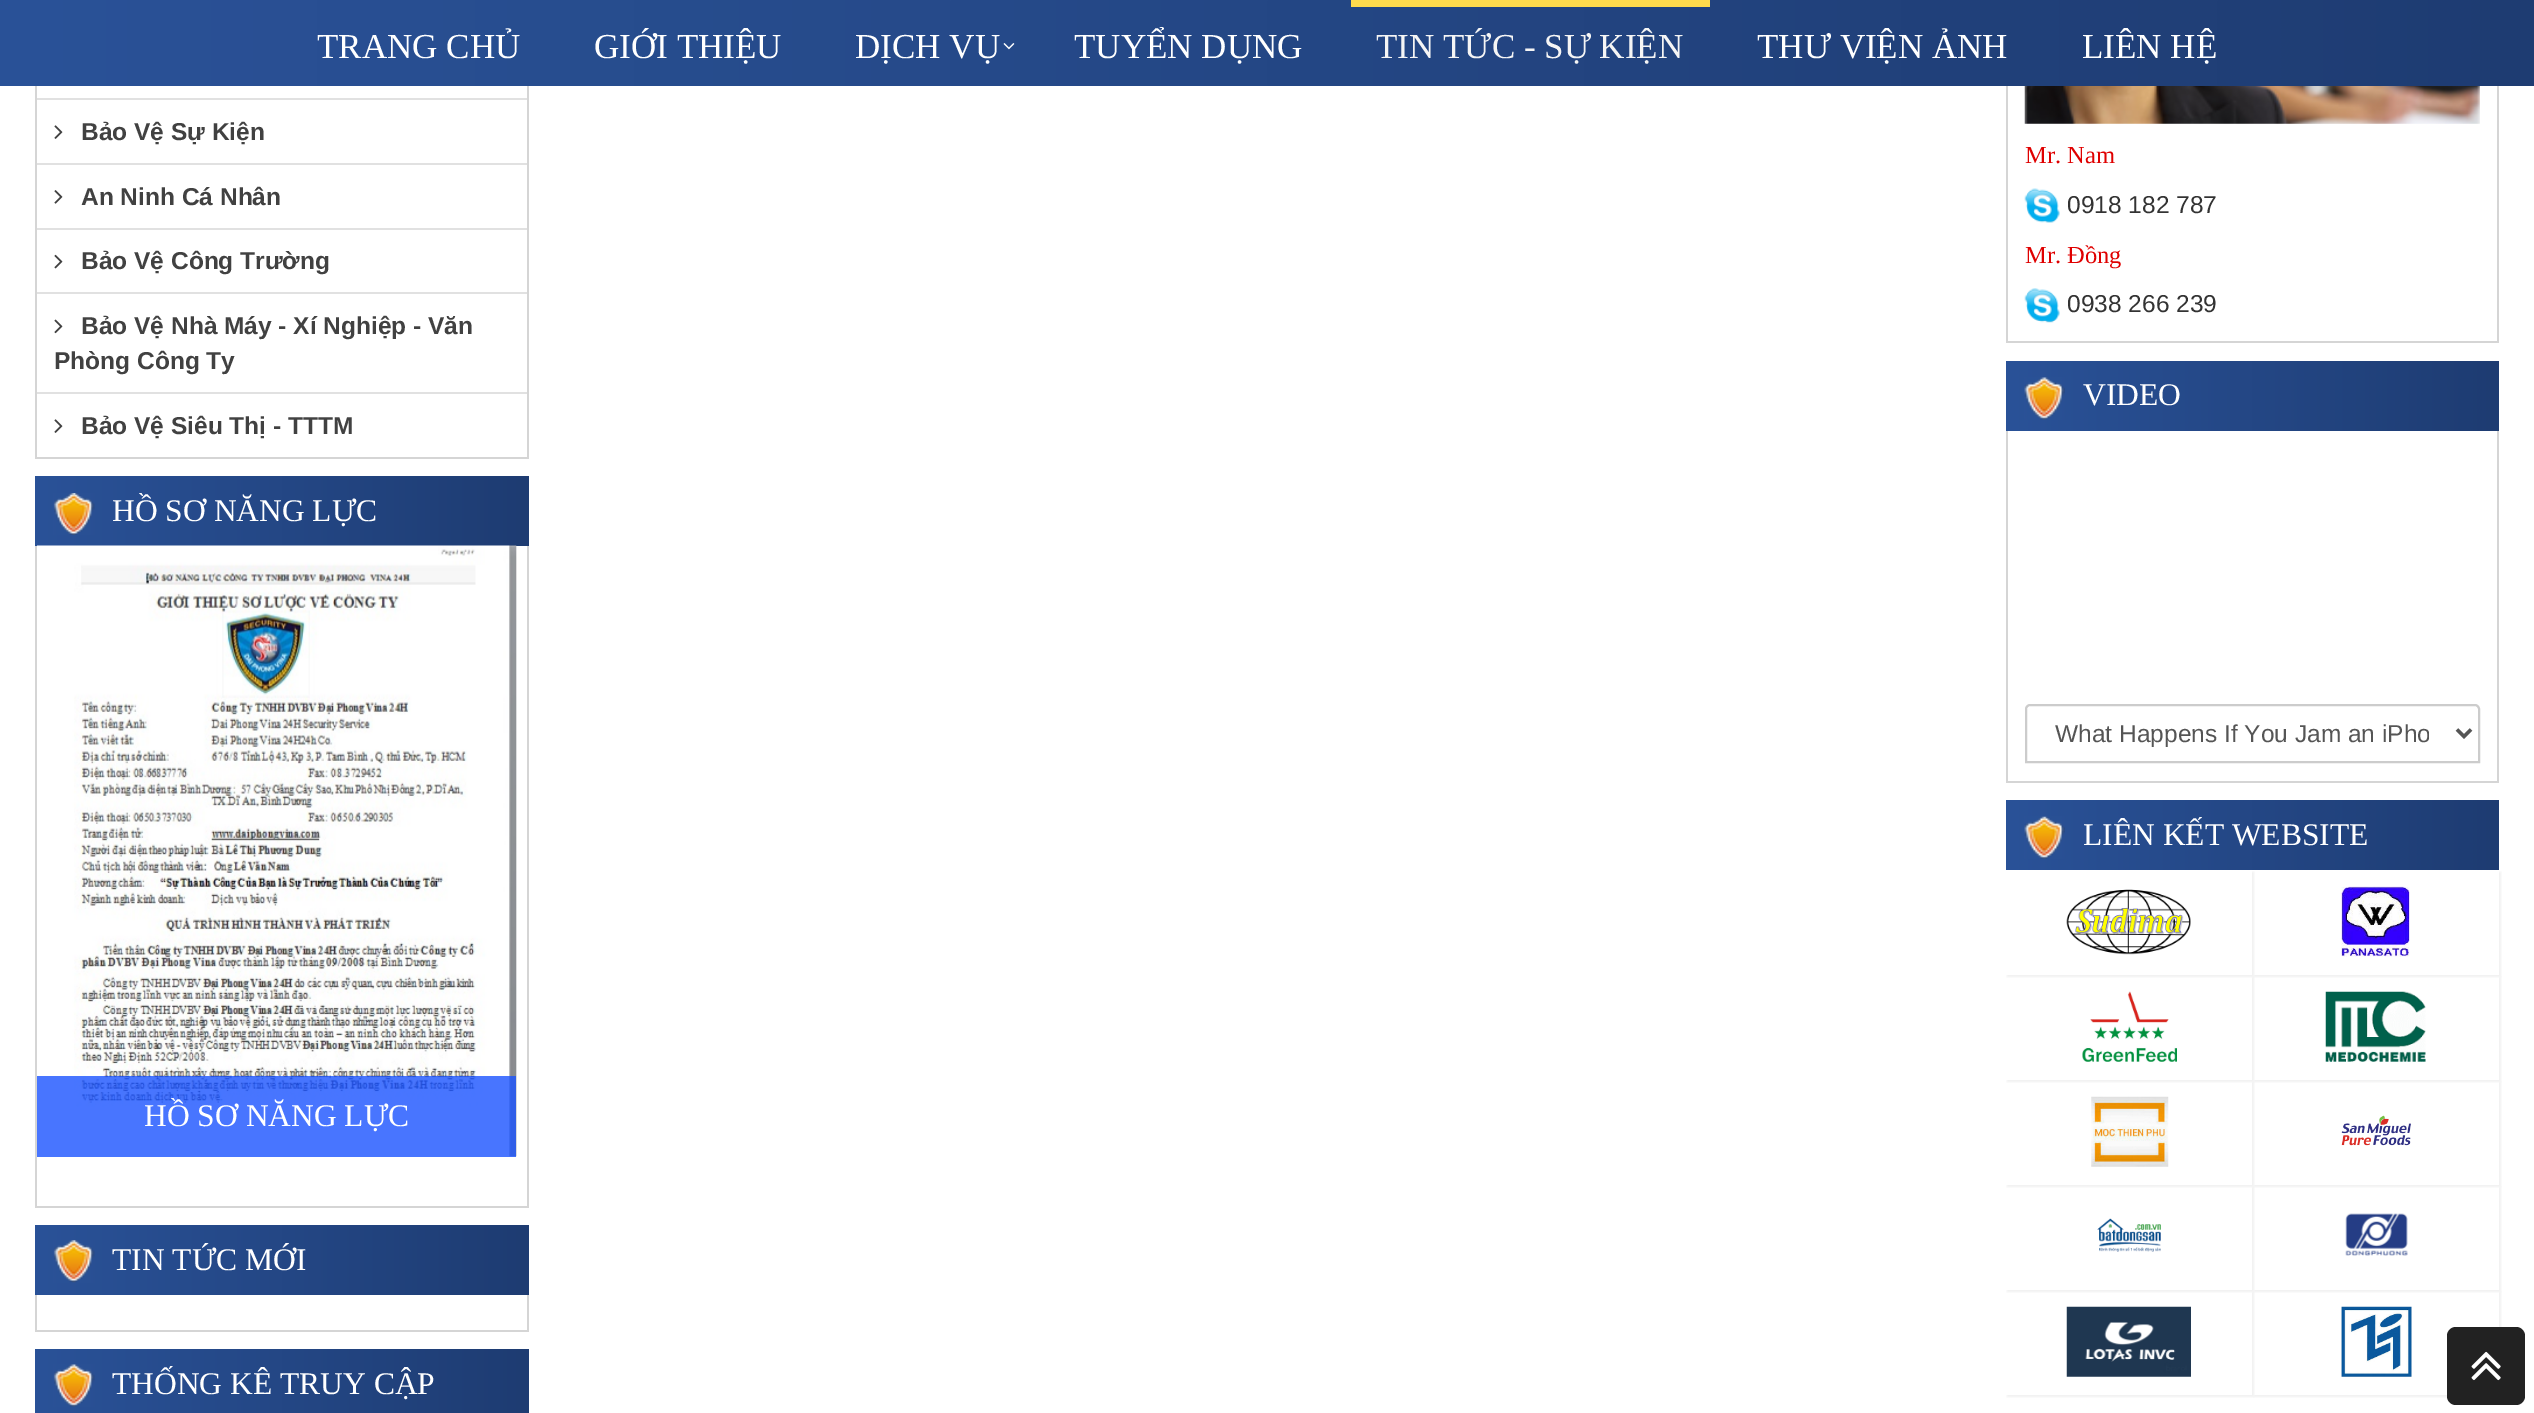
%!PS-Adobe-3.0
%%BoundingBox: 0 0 2534 1413
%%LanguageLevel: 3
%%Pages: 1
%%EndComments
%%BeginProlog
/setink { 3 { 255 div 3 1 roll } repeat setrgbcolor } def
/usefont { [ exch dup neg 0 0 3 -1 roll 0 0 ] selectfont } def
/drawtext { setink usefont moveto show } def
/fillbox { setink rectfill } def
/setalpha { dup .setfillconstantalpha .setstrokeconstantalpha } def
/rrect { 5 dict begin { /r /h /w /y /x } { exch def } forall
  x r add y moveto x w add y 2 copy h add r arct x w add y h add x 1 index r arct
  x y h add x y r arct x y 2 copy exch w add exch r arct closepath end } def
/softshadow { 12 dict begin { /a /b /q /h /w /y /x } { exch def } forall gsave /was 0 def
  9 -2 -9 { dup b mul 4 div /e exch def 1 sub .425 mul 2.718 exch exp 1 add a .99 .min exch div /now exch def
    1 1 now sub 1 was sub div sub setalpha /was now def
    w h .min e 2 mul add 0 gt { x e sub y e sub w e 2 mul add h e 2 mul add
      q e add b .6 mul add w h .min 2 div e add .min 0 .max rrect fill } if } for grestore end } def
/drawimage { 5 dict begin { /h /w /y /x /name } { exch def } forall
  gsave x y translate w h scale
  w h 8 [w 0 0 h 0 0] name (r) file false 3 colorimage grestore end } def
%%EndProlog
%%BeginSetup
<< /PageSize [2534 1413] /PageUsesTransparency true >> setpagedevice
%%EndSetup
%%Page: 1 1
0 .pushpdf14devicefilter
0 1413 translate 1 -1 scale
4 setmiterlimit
0 0 2534 1413 255 255 255 fillbox
gsave 0 0 moveto 2534 0 lineto 2534 86 lineto 0 86 lineto closepath clip newpath
<< /ShadingType 2 /ColorSpace /DeviceRGB /Coords [2534 43 0 43] /Extend [true true] /Function << /FunctionType 2 /Domain [0 1] /C0 [0.118 0.235 0.447] /C1 [0.165 0.322 0.596] /N 1 >> >> shfill grestore
(TRANG CHỦ) 317 58 /LiberationSerif-Regular 35 255 255 255 drawtext
(GIỚI THIỆU) 594 58 /LiberationSerif-Regular 35 255 255 255 drawtext
(DỊCH VỤ) 855 58 /LiberationSerif-Regular 35 255 255 255 drawtext
(assets/img1.rgb) 1003 43 12 7 drawimage
(TUYỂN DỤNG) 1074 58 /LiberationSerif-Regular 35 255 255 255 drawtext
1351 0 359 7 255 219 77 fillbox
(TIN TỨC - SỰ KIỆN) 1376 58 /LiberationSerif-Regular 35 245 245 245 drawtext
(THƯ VIỆN ẢNH) 1757 58 /LiberationSerif-Regular 35 255 255 255 drawtext
(LIÊN HỆ) 2082 58 /LiberationSerif-Regular 35 255 255 255 drawtext
527 86 2 373 213 213 213 fillbox
35 457 494 2 213 213 213 fillbox
35 86 2 373 213 213 213 fillbox
37 98 490 2 225 225 225 fillbox
37 163 490 2 225 225 225 fillbox
(assets/img2.rgb) 54 125 9 14 drawimage
(Bảo Vệ Sự Kiện) 81 140 /LiberationSans-Bold 24.5 65 65 65 drawtext
37 228 490 2 225 225 225 fillbox
(assets/img3.rgb) 54 190 9 14 drawimage
(An Ninh Cá Nhân) 81 205 /LiberationSans-Bold 24.5 65 65 65 drawtext
37 292 490 2 225 225 225 fillbox
(assets/img4.rgb) 54 254 9 15 drawimage
(Bảo Vệ Công Trường) 81 269 /LiberationSans-Bold 24.5 65 65 65 drawtext
37 392 490 2 225 225 225 fillbox
(assets/img5.rgb) 54 319 9 15 drawimage
(Bảo Vệ Nhà Máy - Xí Nghiệp - Văn) 81 334 /LiberationSans-Bold 24.5 65 65 65 drawtext
(Phòng Công Ty) 54 369 /LiberationSans-Bold 24.5 65 65 65 drawtext
(assets/img2.rgb) 54 419 9 14 drawimage
(Bảo Vệ Siêu Thị - TTTM) 81 434 /LiberationSans-Bold 24.5 65 65 65 drawtext
gsave 35 476 moveto 529 476 lineto 529 546 lineto 35 546 lineto closepath clip newpath
<< /ShadingType 2 /ColorSpace /DeviceRGB /Coords [529 511 35 511] /Extend [true true] /Function << /FunctionType 2 /Domain [0 1] /C0 [0.118 0.235 0.447] /C1 [0.165 0.322 0.596] /N 1 >> >> shfill grestore
(assets/img6.rgb) 53 493 42 42 drawimage
(HỒ SƠ NĂNG LỰC) 112 521 /LiberationSerif-Regular 31.5 255 255 255 drawtext
527 546 2 662 213 213 213 fillbox
35 1206 494 2 213 213 213 fillbox
35 546 2 662 213 213 213 fillbox
37 546 479 611 250 250 250 fillbox
(assets/img7.rgb) 37 545 480 612 drawimage
0.8 setalpha
37 1076 479 81 26 83 255 fillbox
1 setalpha
(HỒ SƠ NĂNG LỰC) 144 1126 /LiberationSerif-Regular 31.5 255 255 255 drawtext
gsave 35 1225 moveto 529 1225 lineto 529 1295 lineto 35 1295 lineto closepath clip newpath
<< /ShadingType 2 /ColorSpace /DeviceRGB /Coords [529 1260 35 1260] /Extend [true true] /Function << /FunctionType 2 /Domain [0 1] /C0 [0.118 0.235 0.447] /C1 [0.165 0.322 0.596] /N 1 >> >> shfill grestore
(assets/img8.rgb) 53 1240 42 43 drawimage
(TIN TỨC MỚI) 112 1270 /LiberationSerif-Regular 31.5 255 255 255 drawtext
527 1295 2 37 213 213 213 fillbox
35 1330 494 2 213 213 213 fillbox
35 1295 2 37 213 213 213 fillbox
gsave 35 1349 moveto 529 1349 lineto 529 1413 lineto 35 1413 lineto closepath clip newpath
<< /ShadingType 2 /ColorSpace /DeviceRGB /Coords [529 1384 35 1384] /Extend [true true] /Function << /FunctionType 2 /Domain [0 1] /C0 [0.118 0.235 0.447] /C1 [0.165 0.322 0.596] /N 1 >> >> shfill grestore
(assets/img9.rgb) 53 1364 42 43 drawimage
(THỐNG KÊ TRUY CẬP) 112 1394 /LiberationSerif-Regular 31.5 255 255 255 drawtext
2497 86 2 257 213 213 213 fillbox
2006 341 493 2 213 213 213 fillbox
2006 86 2 257 213 213 213 fillbox
(assets/img10.rgb) 2024 86 456 38 drawimage
(Mr. Nam) 2025 163 /LiberationSerif-Regular 24.5 223 0 0 drawtext
(assets/img11.rgb) 2024 188 36 35 drawimage
(0918 182 787) 2067 213 /LiberationSans-Regular 24.5 51 51 51 drawtext
(Mr. Đồng) 2025 263 /LiberationSerif-Regular 24.5 223 0 0 drawtext
(assets/img12.rgb) 2024 288 36 35 drawimage
(0938 266 239) 2067 312 /LiberationSans-Regular 24.5 51 51 51 drawtext
gsave 2006 361 moveto 2499 361 lineto 2499 431 lineto 2006 431 lineto closepath clip newpath
<< /ShadingType 2 /ColorSpace /DeviceRGB /Coords [2499 396 2006 396] /Extend [true true] /Function << /FunctionType 2 /Domain [0 1] /C0 [0.118 0.235 0.447] /C1 [0.165 0.322 0.596] /N 1 >> >> shfill grestore
(assets/img13.rgb) 2024 377 41 43 drawimage
(VIDEO) 2083 405 /LiberationSerif-Regular 31.5 255 255 255 drawtext
2497 431 2 351 213 213 213 fillbox
2006 781 493 2 213 213 213 fillbox
2006 431 2 351 213 213 213 fillbox
204 204 204 setink
2 setlinewidth
2030 705 moveto 2475 705 lineto 2477 705 2479 707 2479 709 curveto 2479 762 lineto 2026 762 lineto 2026 709 lineto 2026 707 2028 705 2030 705 curveto closepath stroke
85 85 85 setink
3.5 setlinewidth
2457 729.5 moveto 2464 736.5 lineto 2471 729.5 lineto stroke
gsave
2055 718 374 31 rectclip
(What Happens If You Jam an iPho) 2055 742 /LiberationSans-Regular 24.5 85 85 85 drawtext
grestore
gsave
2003 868 moveto 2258 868 lineto 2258 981 lineto 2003 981 lineto closepath 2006 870 moveto 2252 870 lineto 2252 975 lineto 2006 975 lineto closepath eoclip newpath
241 241 241 setink
2007 872 247 105 0 1 1 softshadow
grestore
gsave
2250 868 moveto 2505 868 lineto 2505 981 lineto 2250 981 lineto closepath 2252 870 moveto 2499 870 lineto 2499 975 lineto 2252 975 lineto closepath eoclip newpath
241 241 241 setink
2254 872 247 105 0 1 1 softshadow
grestore
gsave 2006 800 moveto 2499 800 lineto 2499 870 lineto 2006 870 lineto closepath clip newpath
<< /ShadingType 2 /ColorSpace /DeviceRGB /Coords [2499 835 2006 835] /Extend [true true] /Function << /FunctionType 2 /Domain [0 1] /C0 [0.118 0.235 0.447] /C1 [0.165 0.322 0.596] /N 1 >> >> shfill grestore
(assets/img14.rgb) 2024 816 41 43 drawimage
(LIÊN KẾT WEBSITE) 2083 845 /LiberationSerif-Regular 31.5 255 255 255 drawtext
(assets/img15.rgb) 2066 889 125 66 drawimage
(assets/img16.rgb) 2341 886 69 71 drawimage
gsave
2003 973 moveto 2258 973 lineto 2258 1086 lineto 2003 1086 lineto closepath 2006 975 moveto 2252 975 lineto 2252 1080 lineto 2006 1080 lineto closepath eoclip newpath
241 241 241 setink
2007 977 247 105 0 1 1 softshadow
grestore
(assets/img17.rgb) 2082 991 95 71 drawimage
gsave
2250 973 moveto 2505 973 lineto 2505 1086 lineto 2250 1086 lineto closepath 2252 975 moveto 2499 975 lineto 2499 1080 lineto 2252 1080 lineto closepath eoclip newpath
241 241 241 setink
2254 977 247 105 0 1 1 softshadow
grestore
(assets/img18.rgb) 2325 991 101 71 drawimage
gsave
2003 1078 moveto 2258 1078 lineto 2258 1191 lineto 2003 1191 lineto closepath 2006 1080 moveto 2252 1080 lineto 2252 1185 lineto 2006 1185 lineto closepath eoclip newpath
241 241 241 setink
2007 1082 247 105 0 1 1 softshadow
grestore
(assets/img19.rgb) 2091 1096 78 71 drawimage
gsave
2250 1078 moveto 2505 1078 lineto 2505 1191 lineto 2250 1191 lineto closepath 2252 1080 moveto 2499 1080 lineto 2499 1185 lineto 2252 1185 lineto closepath eoclip newpath
241 241 241 setink
2254 1082 247 105 0 1 1 softshadow
grestore
(assets/img20.rgb) 2341 1115 70 31 drawimage
gsave
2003 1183 moveto 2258 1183 lineto 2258 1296 lineto 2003 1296 lineto closepath 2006 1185 moveto 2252 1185 lineto 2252 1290 lineto 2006 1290 lineto closepath eoclip newpath
241 241 241 setink
2007 1187 247 105 0 1 1 softshadow
grestore
(assets/img21.rgb) 2097 1218 64 34 drawimage
gsave
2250 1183 moveto 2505 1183 lineto 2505 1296 lineto 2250 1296 lineto closepath 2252 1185 moveto 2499 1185 lineto 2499 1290 lineto 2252 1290 lineto closepath eoclip newpath
241 241 241 setink
2254 1187 247 105 0 1 1 softshadow
grestore
(assets/img22.rgb) 2345 1213 63 43 drawimage
gsave
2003 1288 moveto 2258 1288 lineto 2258 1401 lineto 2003 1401 lineto closepath 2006 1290 moveto 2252 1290 lineto 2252 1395 lineto 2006 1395 lineto closepath eoclip newpath
241 241 241 setink
2007 1292 247 105 0 1 1 softshadow
grestore
(assets/img23.rgb) 2066 1306 125 71 drawimage
gsave
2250 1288 moveto 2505 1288 lineto 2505 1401 lineto 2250 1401 lineto closepath 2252 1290 moveto 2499 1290 lineto 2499 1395 lineto 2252 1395 lineto closepath eoclip newpath
241 241 241 setink
2254 1292 247 105 0 1 1 softshadow
grestore
(assets/img24.rgb) 2341 1306 71 71 drawimage
34 34 34 setink
2447 1327 78 78 9 rrect fill
(assets/img25.rgb) 2471 1351 30 30 drawimage
.poppdf14devicefilter showpage
%%EOF
